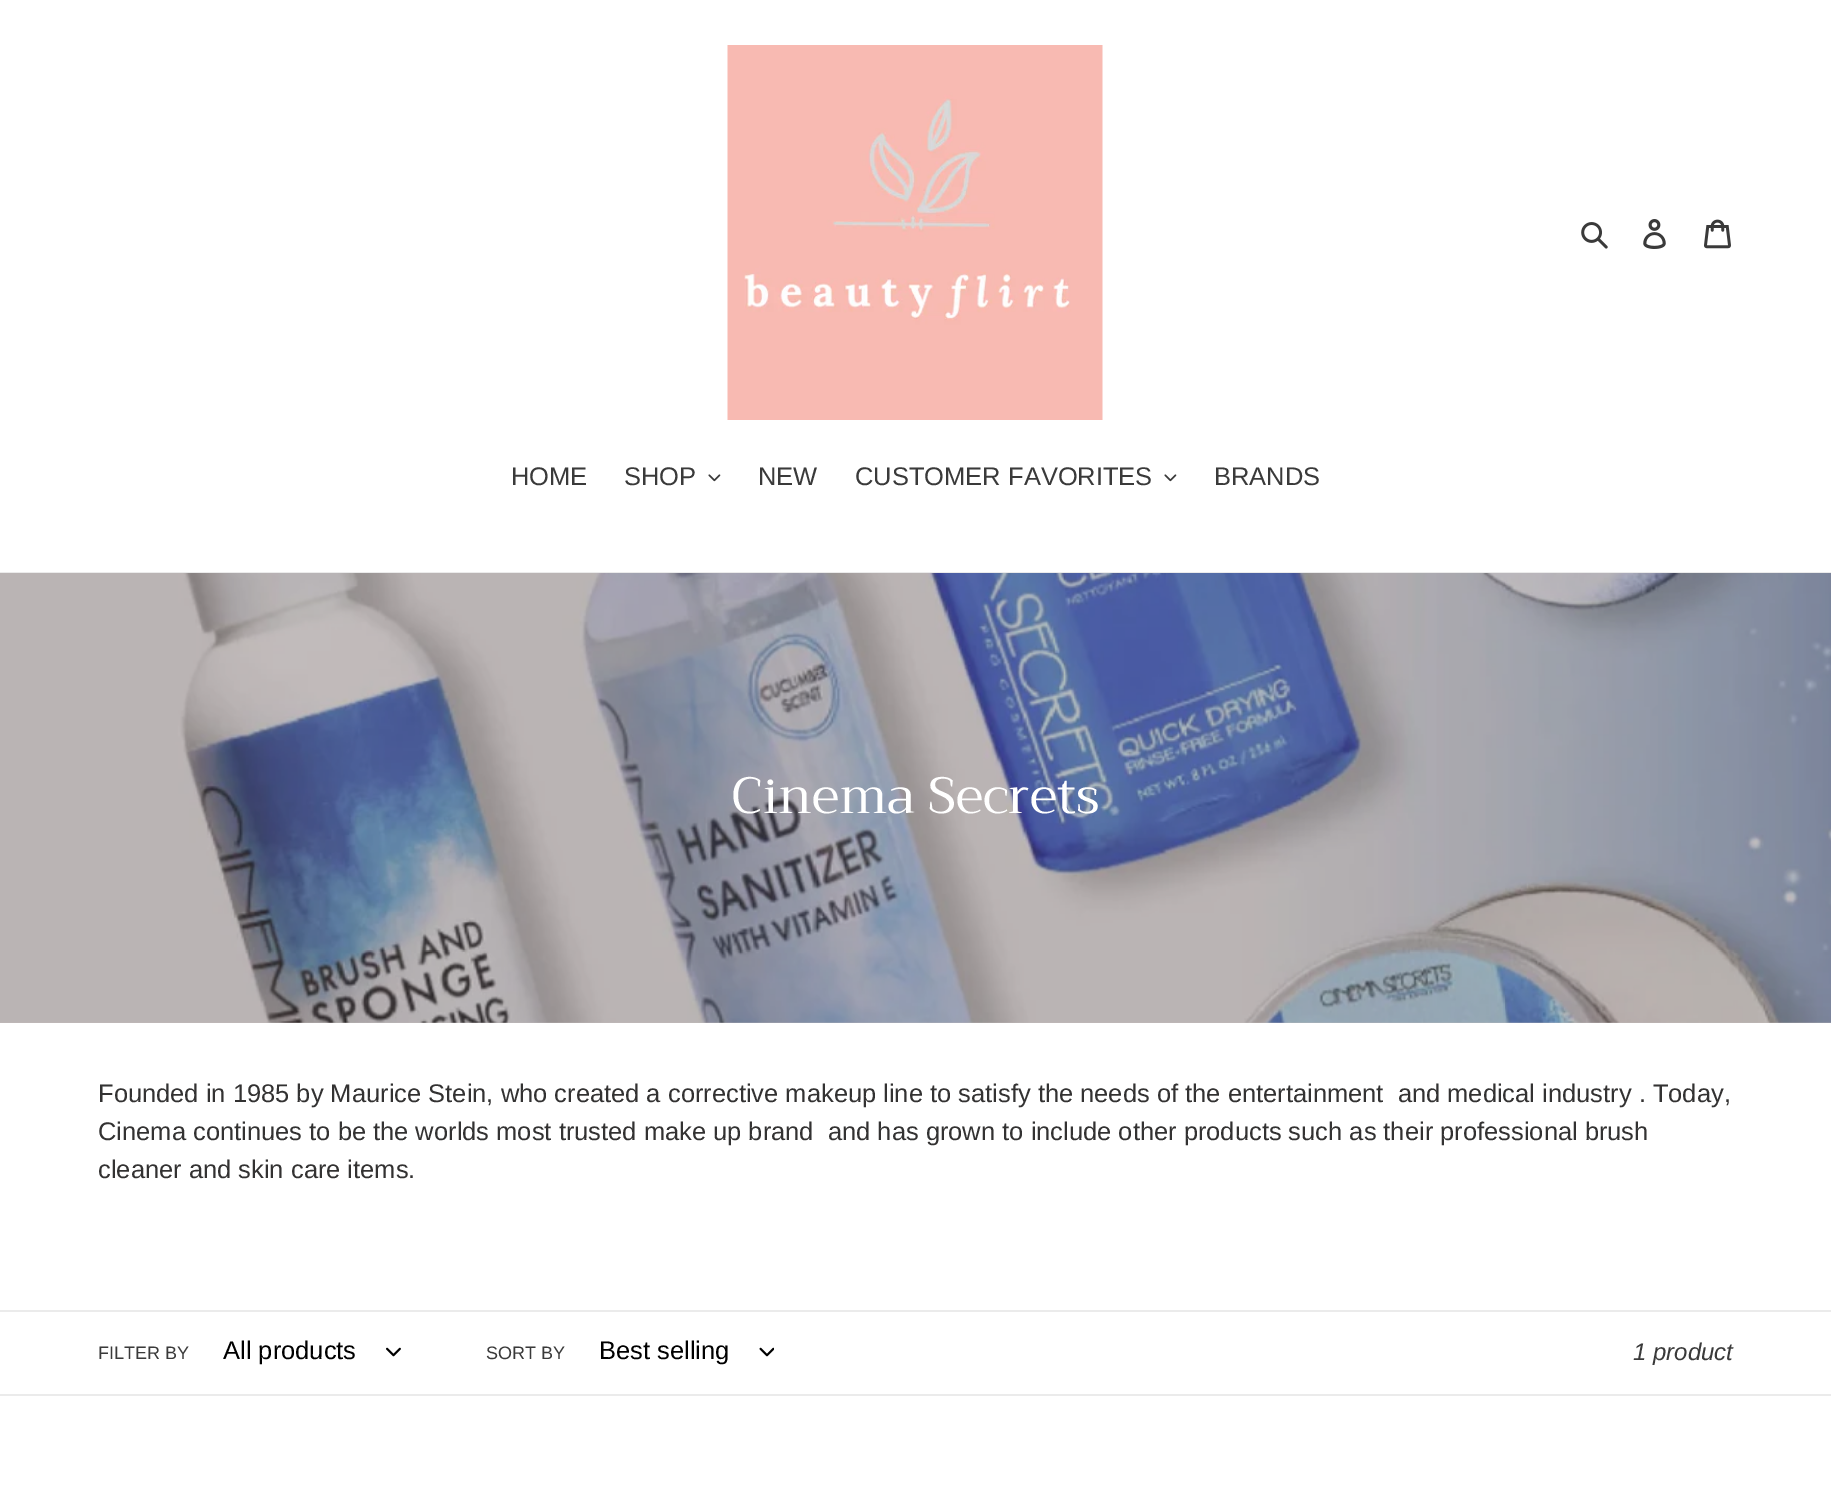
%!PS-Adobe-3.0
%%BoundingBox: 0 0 1831 1490
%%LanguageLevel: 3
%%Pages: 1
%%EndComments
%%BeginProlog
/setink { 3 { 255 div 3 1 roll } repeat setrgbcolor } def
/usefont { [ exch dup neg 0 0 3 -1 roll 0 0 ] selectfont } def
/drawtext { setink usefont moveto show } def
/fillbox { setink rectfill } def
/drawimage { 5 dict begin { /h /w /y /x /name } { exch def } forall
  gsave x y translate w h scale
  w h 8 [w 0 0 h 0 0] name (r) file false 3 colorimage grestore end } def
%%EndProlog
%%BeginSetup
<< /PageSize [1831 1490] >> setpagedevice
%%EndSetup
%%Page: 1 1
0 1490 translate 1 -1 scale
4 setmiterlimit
0 0 1831 1490 255 255 255 fillbox
(assets/img1.rgb) 727 45 376 375 drawimage
(assets/img2.rgb) 1581 222 27 27 drawimage
(assets/img3.rgb) 1643 219 23 30 drawimage
(assets/img4.rgb) 1704 219 27 30 drawimage
0 572 1831 1 235 235 235 fillbox
(HOME) 511 485 /LiberationSans-Regular 25.5 58 58 58 drawtext
(SHOP) 624 485 /LiberationSans-Regular 25.5 58 58 58 drawtext
(assets/img5.rgb) 708 474 13 8 drawimage
(NEW) 758 485 /LiberationSans-Regular 25.5 58 58 58 drawtext
(CUSTOMER FAVORITES) 855 485 /LiberationSans-Regular 25.5 58 58 58 drawtext
(assets/img5.rgb) 1164 474 13 8 drawimage
(BRANDS) 1214 485 /LiberationSans-Regular 25.5 58 58 58 drawtext
(assets/img6.rgb) 0 573 1831 450 drawimage
(Cinema Secrets) 731 813 /Trirong-Regular 51 255 255 255 drawtext
(Founded in 1985 by Maurice Stein, who created a corrective makeup line to satisfy the needs of the entertainment  and medical industry . Today,) 98 1102 /LiberationSans-Regular 25.5 51 50 50 drawtext
(Cinema continues to be the worlds most trusted make up brand  and has grown to include other products such as their professional brush) 98 1140 /LiberationSans-Regular 25.5 51 50 50 drawtext
(cleaner and skin care items.) 98 1178 /LiberationSans-Regular 25.5 51 50 50 drawtext
0 1310 1831 2 235 235 235 fillbox
0 1394 1831 2 235 235 235 fillbox
(FILTER BY) 98 1359 /LiberationSans-Regular 18 58 58 58 drawtext
(All products) 223 1359 /LiberationSans-Regular 25.5 0 0 0 drawtext
(assets/img7.rgb) 386 1347 15 10 drawimage
(SORT BY) 486 1359 /LiberationSans-Regular 18 58 58 58 drawtext
(Best selling) 599 1359 /LiberationSans-Regular 25.5 0 0 0 drawtext
(assets/img8.rgb) 759 1347 15 10 drawimage
(1 product) 1633 1360 /LiberationSans-Italic 24 58 58 58 drawtext
showpage
%%EOF
